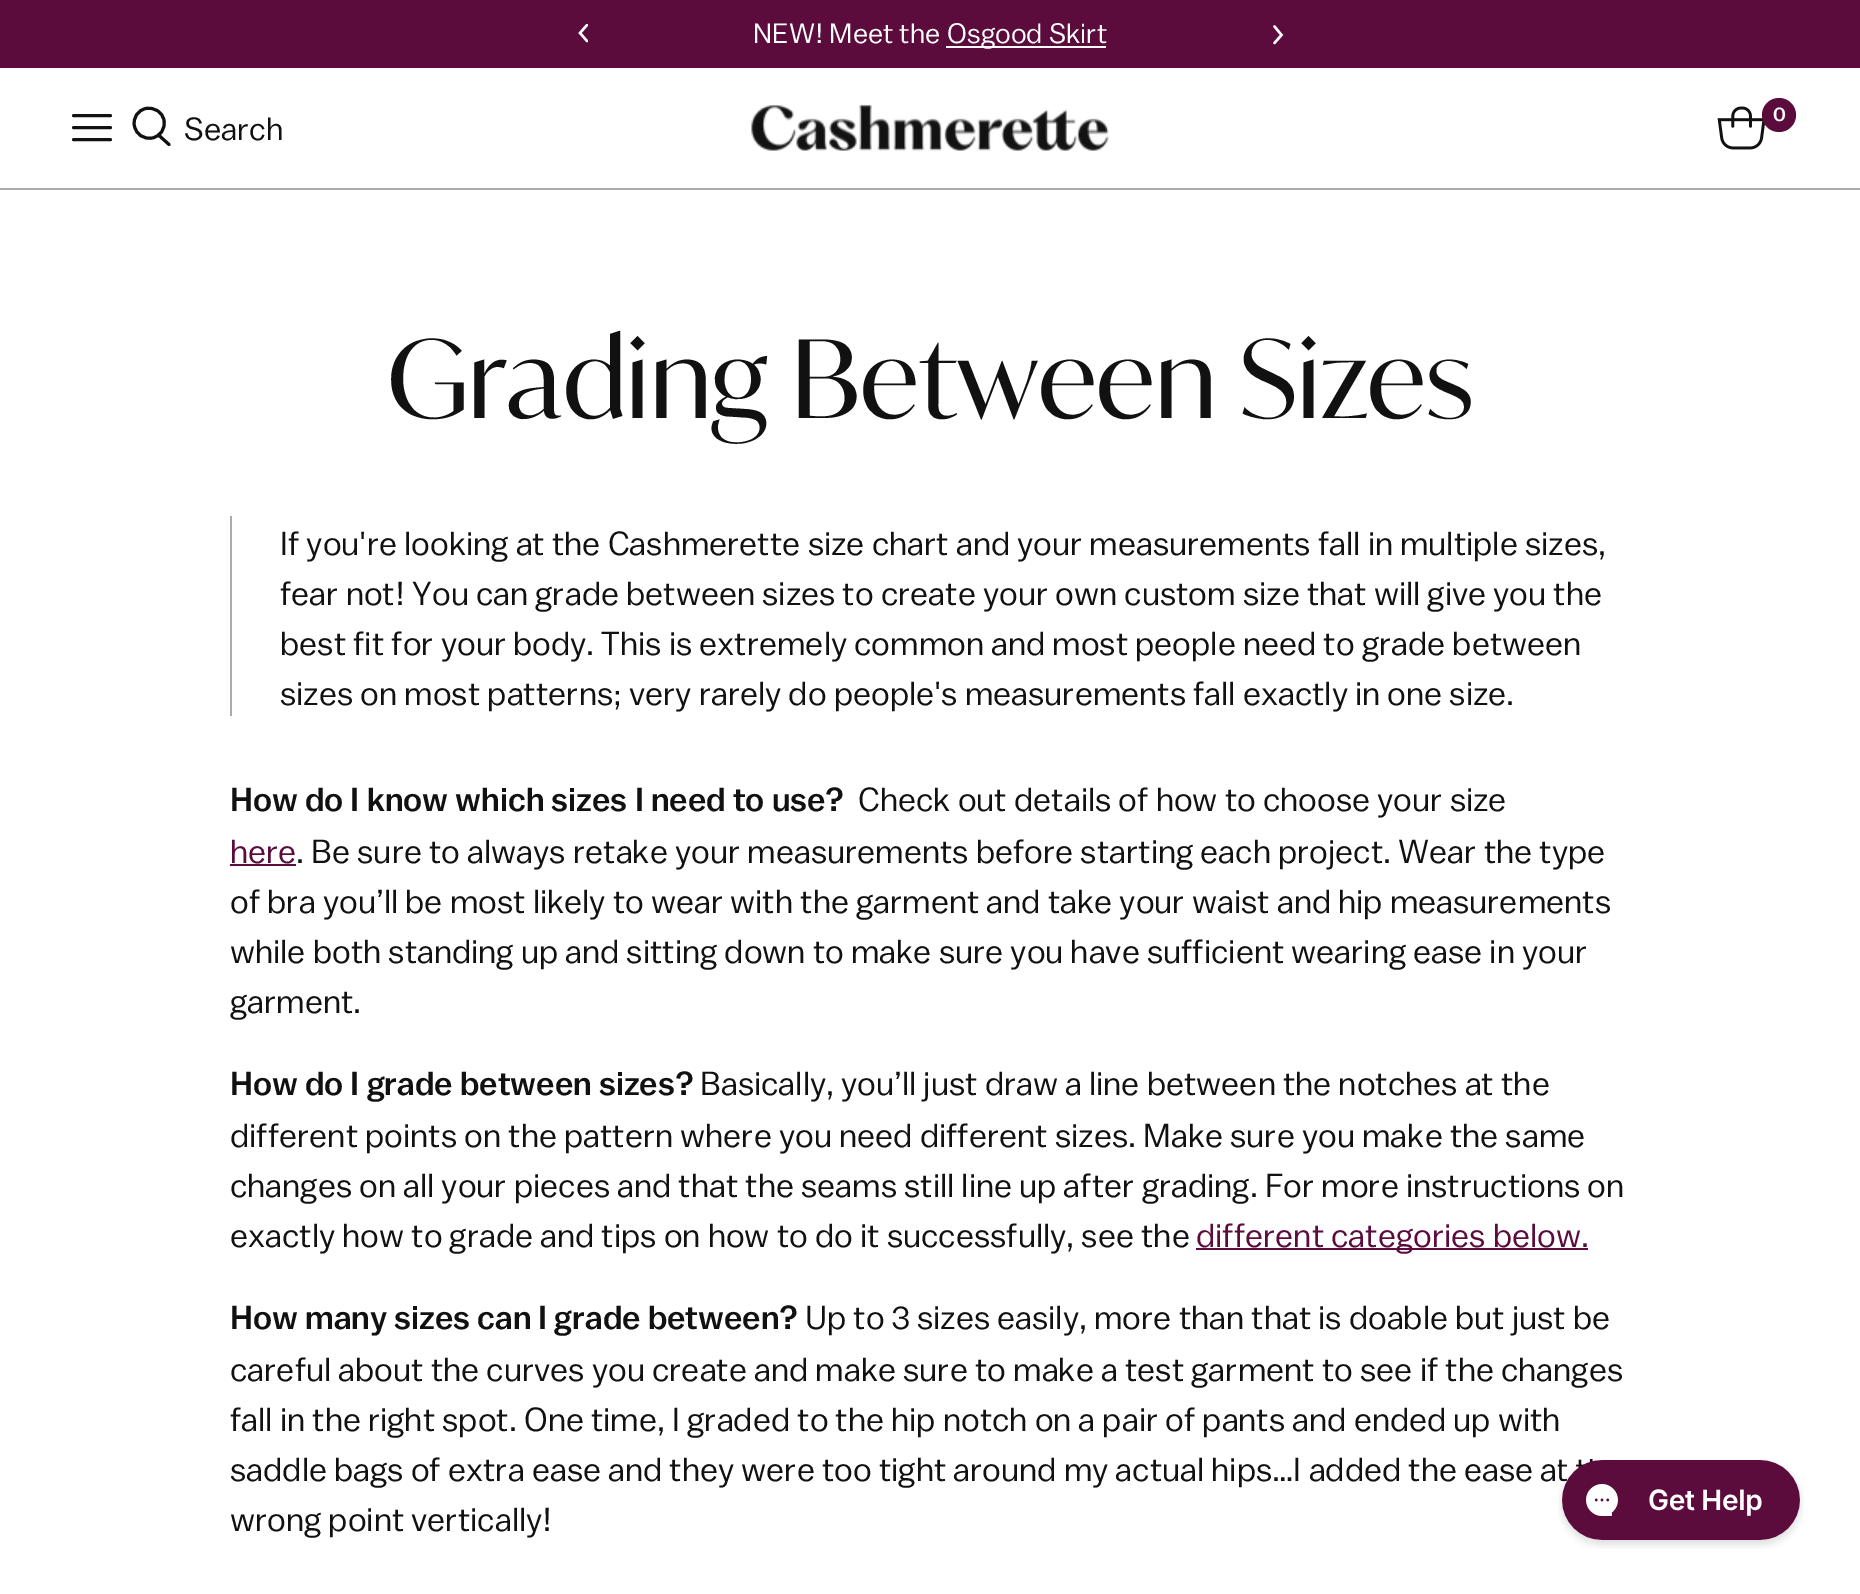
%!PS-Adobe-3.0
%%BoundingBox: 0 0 1860 1594
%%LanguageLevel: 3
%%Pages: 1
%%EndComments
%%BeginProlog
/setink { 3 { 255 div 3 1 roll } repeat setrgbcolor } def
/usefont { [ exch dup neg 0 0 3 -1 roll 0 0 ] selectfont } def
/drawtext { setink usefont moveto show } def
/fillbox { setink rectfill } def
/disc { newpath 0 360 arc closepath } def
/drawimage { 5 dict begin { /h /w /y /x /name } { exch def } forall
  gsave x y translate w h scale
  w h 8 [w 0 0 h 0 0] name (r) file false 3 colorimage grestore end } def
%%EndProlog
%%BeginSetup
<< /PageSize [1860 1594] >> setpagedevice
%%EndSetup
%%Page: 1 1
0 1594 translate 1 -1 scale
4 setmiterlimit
0 0 1860 1594 255 255 255 fillbox
0 0 1860 68 91 12 60 fillbox
(NEW! Meet the) 753 43 /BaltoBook-Regular 28 255 255 255 drawtext
946 46 160 2 255 255 255 fillbox
(Osgood Skirt) 947 43 /BaltoBook-Regular 28 255 255 255 drawtext
gsave
576 24 12 20 rectclip
2.4 setlinewidth
1 setlinecap
587 41 moveto 580 33 lineto 587 25 lineto stroke
grestore
2.4 setlinewidth
1 setlinecap
1274.5 26.5 moveto 1281.5 35 lineto 1274.5 43 lineto stroke
0 188 1860 2 170 170 170 fillbox
(assets/img1.rgb) 751 104 358 47 drawimage
(assets/img2.rgb) 1717 106 48 44 drawimage
91 12 60 setink
1779 115 17 disc fill
(0) 1773 121 /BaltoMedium-Medium 20 255 255 255 drawtext
17 17 17 setink
3 setlinewidth
110.5 115.5 moveto 73.5 115.5 lineto 110.5 127.5 moveto 73.5 127.5 lineto 110.5 139.5 moveto 73.5 139.5 lineto stroke
0 setlinecap
152 138 moveto 144 139.5 136 134.5 134.5 126 curveto 132.5 118 138 110 146 108.5 curveto 154.5 107 162.5 112 164 120.5 curveto 165.5 128.5 160.5 136.5 152 138 curveto closepath stroke
1 setlinecap
158.5 135 moveto 169 144.5 lineto stroke
(Search) 184 140 /BaltoBook-Regular 32 17 17 17 drawtext
(Grading Between Sizes) 387 418 /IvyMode-Regular 108 17 17 17 drawtext
230 516 2 200 170 170 170 fillbox
(If you're looking at the Cashmerette size chart and your measurements fall in multiple sizes,) 280 555 /BaltoBook-Regular 33.35 17 17 17 drawtext
(fear not! You can grade between sizes to create your own custom size that will give you the) 280 605 /BaltoBook-Regular 33.35 17 17 17 drawtext
(best fit for your body. This is extremely common and most people need to grade between) 280 655 /BaltoBook-Regular 33.35 17 17 17 drawtext
(sizes on most patterns; very rarely do people's measurements fall exactly in one size.) 280 705 /BaltoBook-Regular 33.35 17 17 17 drawtext
(How do I know which sizes I need to use?) 230 811 /BaltoMedium-Medium 33.35 17 17 17 drawtext
(Check out details of how to choose your size) 858 811 /BaltoBook-Regular 33.35 17 17 17 drawtext
(here) 230 863 /BaltoBook-Regular 33.35 91 12 60 drawtext
230 864 66 2 91 12 60 fillbox
(. Be sure to always retake your measurements before starting each project. Wear the type) 296 863 /BaltoBook-Regular 33.35 17 17 17 drawtext
(of bra you’ll be most likely to wear with the garment and take your waist and hip measurements) 230 913 /BaltoBook-Regular 33.35 17 17 17 drawtext
(while both standing up and sitting down to make sure you have sufficient wearing ease in your) 230 963 /BaltoBook-Regular 33.35 17 17 17 drawtext
(garment.) 230 1013 /BaltoBook-Regular 33.35 17 17 17 drawtext
(How do I grade between sizes?) 230 1095 /BaltoMedium-Medium 33.35 17 17 17 drawtext
(Basically, you’ll just draw a line between the notches at the) 700 1095 /BaltoBook-Regular 33.35 17 17 17 drawtext
(different points on the pattern where you need different sizes. Make sure you make the same) 230 1147 /BaltoBook-Regular 33.35 17 17 17 drawtext
(changes on all your pieces and that the seams still line up after grading. For more instructions on) 230 1197 /BaltoBook-Regular 33.35 17 17 17 drawtext
(exactly how to grade and tips on how to do it successfully, see the) 230 1247 /BaltoBook-Regular 33.35 17 17 17 drawtext
1196 1248 392 2 91 12 60 fillbox
(different categories below.) 1196 1247 /BaltoBook-Regular 33.35 91 12 60 drawtext
(How many sizes can I grade between?) 230 1329 /BaltoMedium-Medium 33.35 17 17 17 drawtext
(Up to 3 sizes easily, more than that is doable but just be) 805 1329 /BaltoBook-Regular 33.35 17 17 17 drawtext
(careful about the curves you create and make sure to make a test garment to see if the changes) 230 1381 /BaltoBook-Regular 33.35 17 17 17 drawtext
(fall in the right spot. One time, I graded to the hip notch on a pair of pants and ended up with) 230 1431 /BaltoBook-Regular 33.35 17 17 17 drawtext
(saddle bags of extra ease and they were too tight around my actual hips…I added the ease at) 230 1481 /BaltoBook-Regular 33.35 17 17 17 drawtext
(wrong point vertically!) 230 1531 /BaltoBook-Regular 33.35 17 17 17 drawtext
(assets/img3.rgb) 1558 1459 246 90 drawimage
showpage
%%EOF
